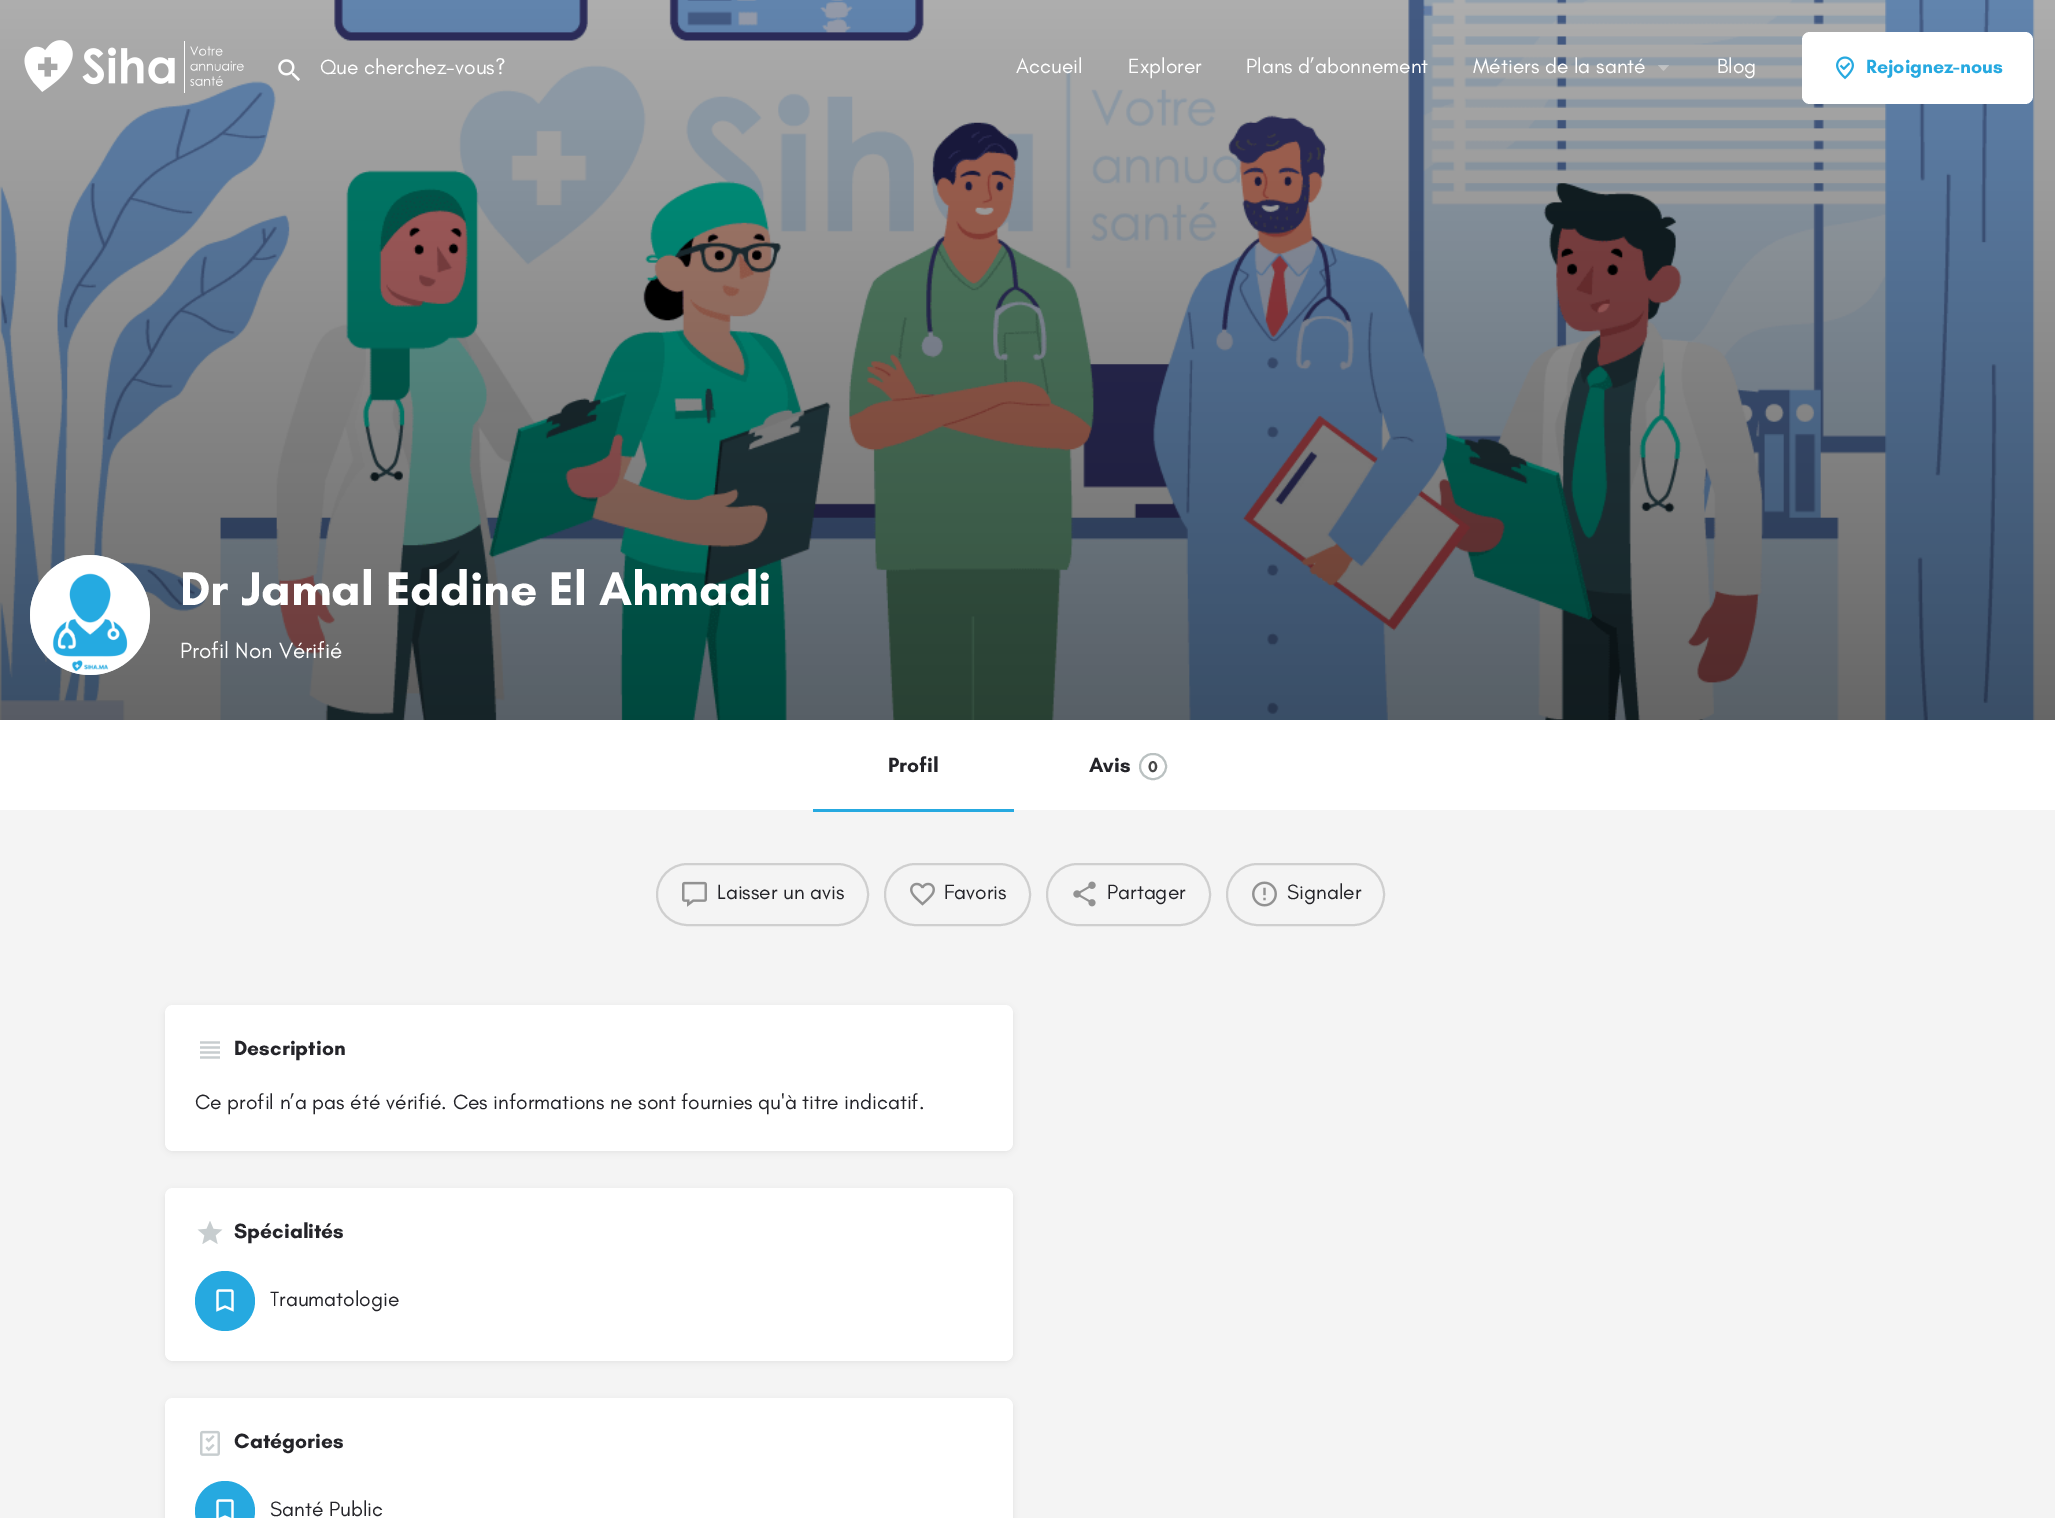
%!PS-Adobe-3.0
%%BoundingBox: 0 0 2055 1518
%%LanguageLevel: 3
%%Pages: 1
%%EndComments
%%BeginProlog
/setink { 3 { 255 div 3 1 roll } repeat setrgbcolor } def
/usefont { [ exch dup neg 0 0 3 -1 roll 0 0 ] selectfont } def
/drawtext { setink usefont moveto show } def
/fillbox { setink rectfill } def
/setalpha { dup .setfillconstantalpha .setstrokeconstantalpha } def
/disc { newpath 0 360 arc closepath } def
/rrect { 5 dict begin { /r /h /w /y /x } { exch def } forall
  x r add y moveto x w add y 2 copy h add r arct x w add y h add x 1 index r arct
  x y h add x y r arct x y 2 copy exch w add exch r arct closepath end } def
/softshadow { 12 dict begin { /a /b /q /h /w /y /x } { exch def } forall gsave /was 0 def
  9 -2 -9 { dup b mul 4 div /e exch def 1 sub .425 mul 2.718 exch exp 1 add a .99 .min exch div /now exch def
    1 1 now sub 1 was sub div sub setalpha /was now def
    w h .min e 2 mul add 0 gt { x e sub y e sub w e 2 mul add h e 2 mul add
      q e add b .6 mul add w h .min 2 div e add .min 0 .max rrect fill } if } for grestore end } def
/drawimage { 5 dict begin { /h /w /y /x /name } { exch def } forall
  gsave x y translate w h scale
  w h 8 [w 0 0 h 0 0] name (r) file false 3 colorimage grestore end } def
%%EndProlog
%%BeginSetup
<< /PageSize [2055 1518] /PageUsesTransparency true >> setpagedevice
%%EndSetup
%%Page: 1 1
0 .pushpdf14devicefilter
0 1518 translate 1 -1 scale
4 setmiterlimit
0 0 2055 1518 244 244 244 fillbox
(assets/img4.rgb) 0 0 2055 720 drawimage
(assets/img1.rgb) 24 40 220 53 drawimage
(assets/img2.rgb) 278 59 22 22 drawimage
(Que cherchez-vous?) 320 74 /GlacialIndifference-Regular 21 255 255 255 drawtext
(Accueil) 1016 73 /GlacialIndifference-Regular 21 255 255 255 drawtext
(Explorer) 1128 73 /GlacialIndifference-Regular 21 255 255 255 drawtext
(Plans d’abonnement) 1246 73 /GlacialIndifference-Regular 21 255 255 255 drawtext
(Métiers de la santé) 1473 73 /GlacialIndifference-Regular 21 255 255 255 drawtext
0.3 setalpha
1658 65 moveto 1669 65 lineto 1663.5 71 lineto closepath fill
1 setalpha
(Blog) 1717 73 /GlacialIndifference-Regular 21 255 255 255 drawtext
1802 32 231 72 8 rrect fill
(assets/img3.rgb) 1836 56 18 24 drawimage
(Rejoignez-nous) 1866 73 /GlacialIndifference-Bold 19.5 38 169 224 drawtext
(assets/img5.rgb) 30 555 120 120 drawimage
(Dr Jamal Eddine El Ahmadi) 180 605 /GlacialIndifference-Bold 48 255 255 255 drawtext
(Profil Non Vérifié) 180 658 /GlacialIndifference-Regular 22.5 255 255 255 drawtext
0 720 2055 90 255 255 255 fillbox
(Profil) 888 772 /GlacialIndifference-Bold 21 36 36 41 drawtext
813 809 201 3 38 169 224 fillbox
(Avis) 1089 772 /GlacialIndifference-Bold 21 36 36 41 drawtext
186 193 193 setink
2 setlinewidth
1140 754 26 25 12.5 rrect stroke
(0) 1148 772 /GlacialIndifference-Bold 16 72 72 72 drawtext
207 207 207 setink
657 864 211 61 30.5 rrect stroke
(assets/img6.rgb) 682 881 25 26 drawimage
(Laisser un avis) 717 899 /GlacialIndifference-Regular 21 36 36 41 drawtext
207 207 207 setink
885 864 145 61 30.5 rrect stroke
(assets/img7.rgb) 910 882 25 24 drawimage
(Favoris) 944 899 /GlacialIndifference-Regular 21 36 36 41 drawtext
207 207 207 setink
1047 864 163 61 30.5 rrect stroke
(assets/img8.rgb) 1073 881 23 26 drawimage
(Partager) 1107 899 /GlacialIndifference-Regular 21 36 36 41 drawtext
207 207 207 setink
1227 864 157 61 30.5 rrect stroke
(assets/img9.rgb) 1252 881 25 26 drawimage
(Signaler) 1287 899 /GlacialIndifference-Regular 21 36 36 41 drawtext
0 0 0 setink
165 1007 848 145 8 3 0.07 softshadow
255 255 255 setink
165 1005 848 146 8 rrect fill
(assets/img10.rgb) 200 1041 20 18 drawimage
(Description) 234 1055 /GlacialIndifference-Bold 21 36 36 41 drawtext
(Ce profil n’a pas été vérifié. Ces informations ne sont fournies qu'à titre indicatif.) 195 1109 /GlacialIndifference-Regular 21 36 36 41 drawtext
0 0 0 setink
165 1190 848 172 8 3 0.07 softshadow
255 255 255 setink
165 1188 848 173 8 rrect fill
(assets/img11.rgb) 197 1221 26 23 drawimage
(Spécialités) 234 1238 /GlacialIndifference-Bold 21 36 36 41 drawtext
38 169 224 setink
225 1301 30 disc fill
(assets/img12.rgb) 216 1289 18 23 drawimage
(Traumatologie) 270 1306 /GlacialIndifference-Regular 21 36 36 41 drawtext
0 0 0 setink
165 1400 848 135 8 3 0.07 softshadow
255 255 255 setink
165 1398 848 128 8 rrect fill
(assets/img13.rgb) 200 1430 20 26 drawimage
(Catégories) 234 1448 /GlacialIndifference-Bold 21 36 36 41 drawtext
38 169 224 setink
225 1511 30 disc fill
(assets/img14.rgb) 216 1499 18 19 drawimage
(Santé Public) 270 1516 /GlacialIndifference-Regular 21 36 36 41 drawtext
.poppdf14devicefilter showpage
%%EOF
